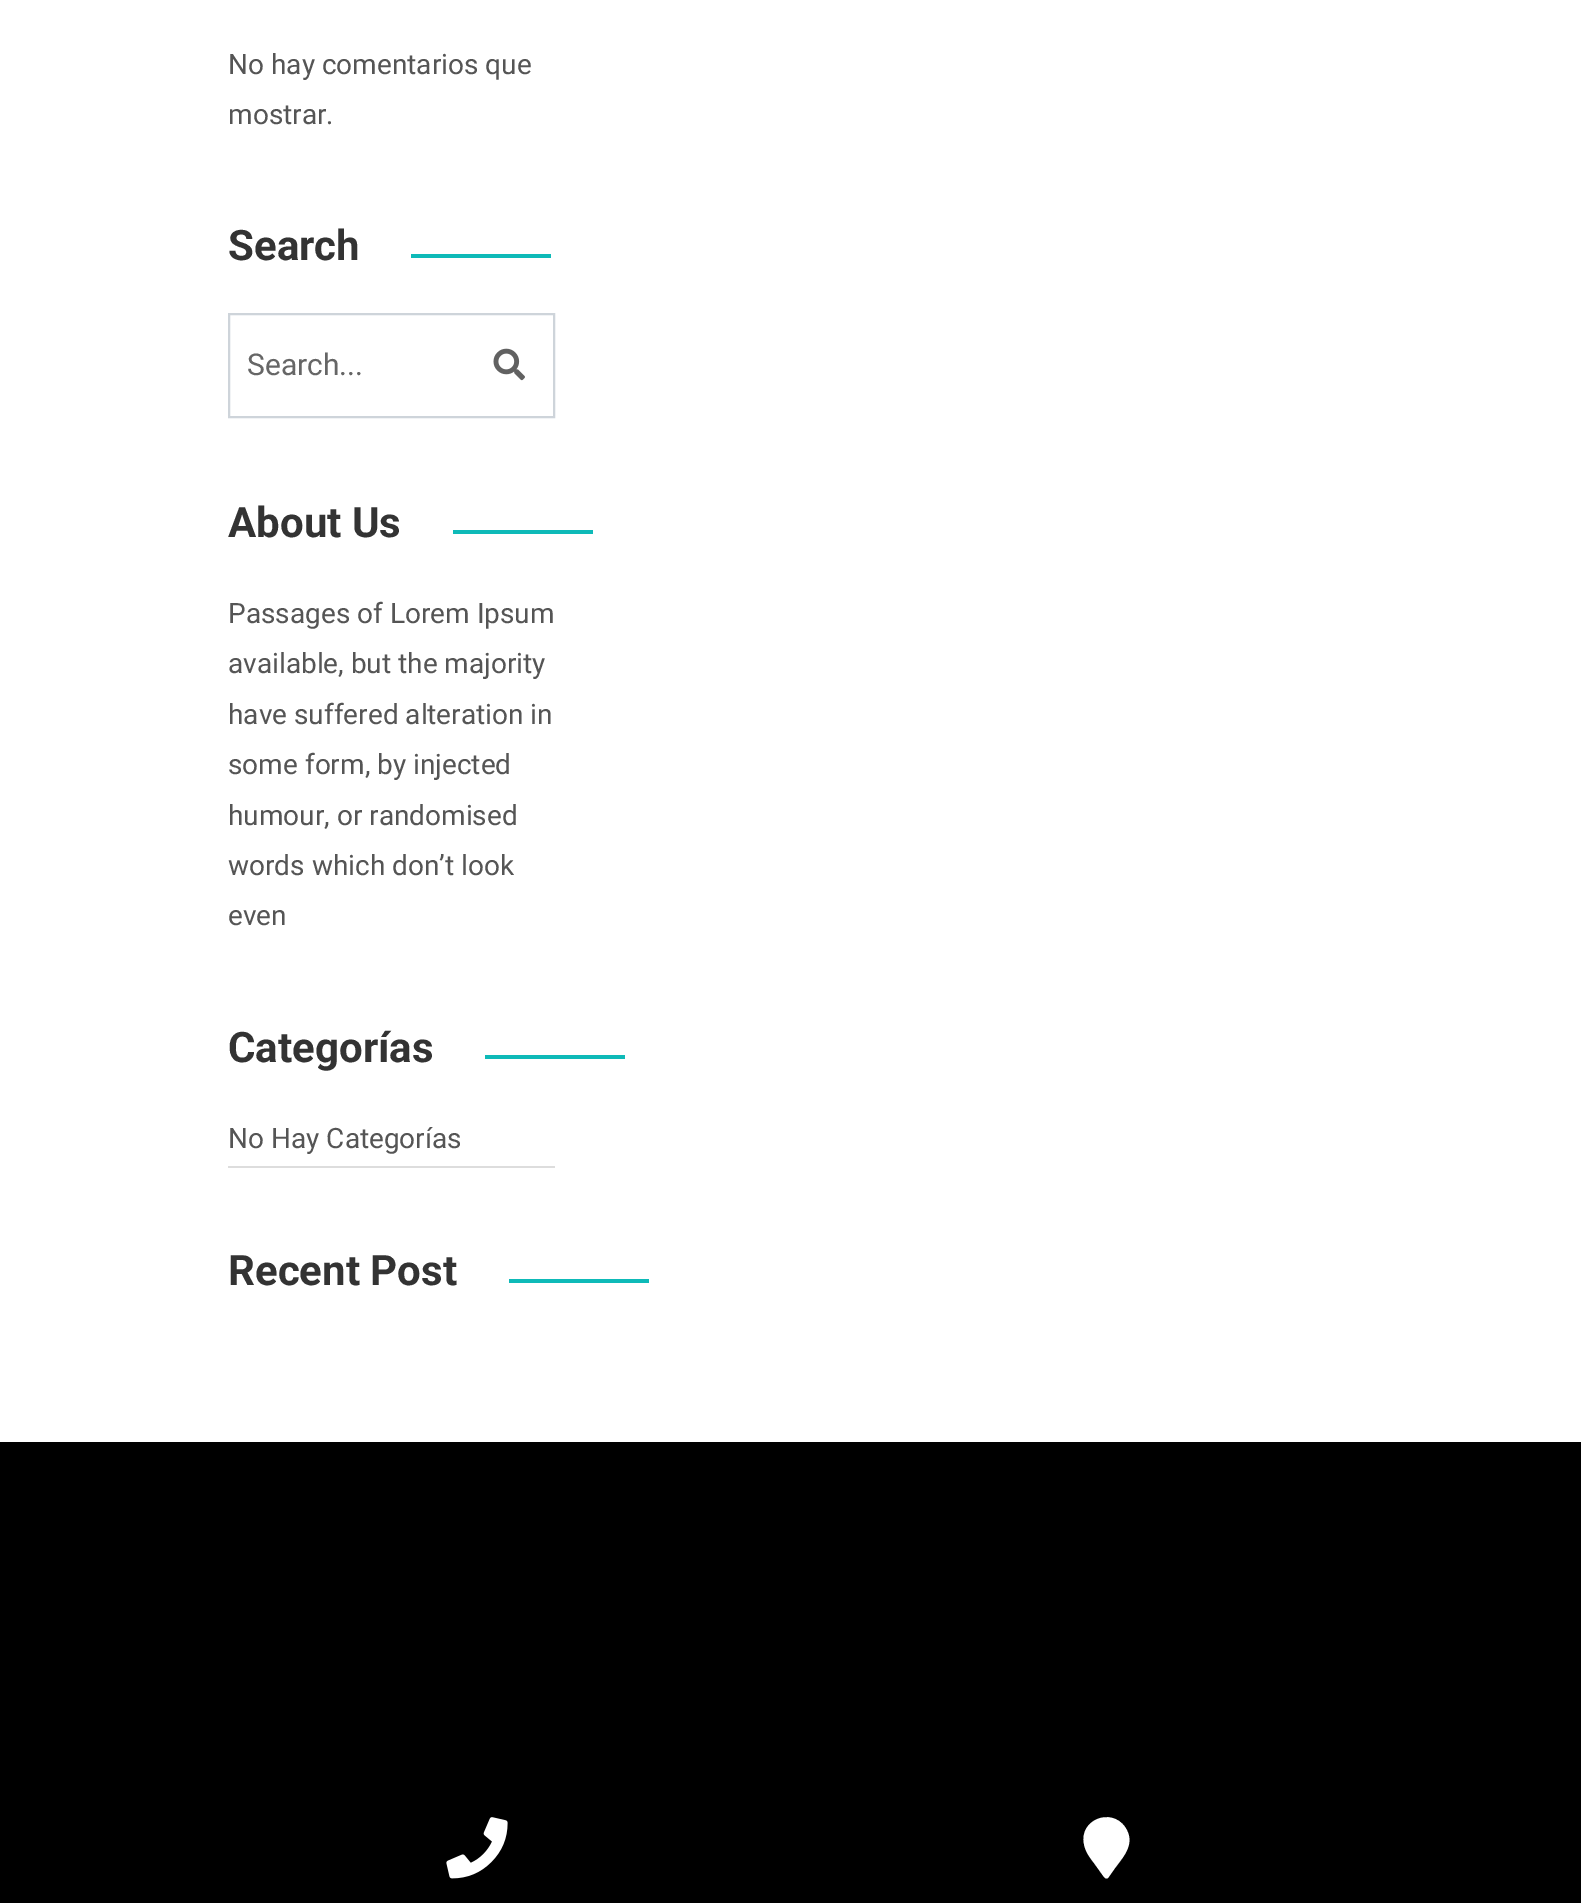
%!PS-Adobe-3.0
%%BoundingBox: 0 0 1581 1903
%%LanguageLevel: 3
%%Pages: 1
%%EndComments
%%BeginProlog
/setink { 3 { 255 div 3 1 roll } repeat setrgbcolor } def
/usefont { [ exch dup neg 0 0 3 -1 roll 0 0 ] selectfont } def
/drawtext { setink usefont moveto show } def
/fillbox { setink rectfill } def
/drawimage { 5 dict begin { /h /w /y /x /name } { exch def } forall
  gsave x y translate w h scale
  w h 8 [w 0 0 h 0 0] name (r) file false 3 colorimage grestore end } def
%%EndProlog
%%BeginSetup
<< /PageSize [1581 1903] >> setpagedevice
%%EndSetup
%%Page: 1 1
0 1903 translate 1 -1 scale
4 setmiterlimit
0 0 1581 1903 255 255 255 fillbox
(No hay comentarios que) 228 74 /Roboto-Regular 28 85 85 85 drawtext
(mostrar.) 228 124 /Roboto-Regular 28 85 85 85 drawtext
(Search) 228 260 /Roboto-Bold 42 51 51 51 drawtext
411 254 140 4 14 186 184 fillbox
206 212 218 setink
2 setlinewidth
229 314 325 103 rectstroke
(Search...) 247 375 /Roboto-Regular 30 102 102 102 drawtext
(assets/img1.rgb) 493 348 32 33 drawimage
(About Us) 228 537 /Roboto-Bold 42 51 51 51 drawtext
453 530 140 4 14 186 184 fillbox
(Passages of Lorem Ipsum) 228 623 /Roboto-Regular 28 85 85 85 drawtext
(available, but the majority) 228 673 /Roboto-Regular 28 85 85 85 drawtext
(have suffered alteration in) 228 724 /Roboto-Regular 28 85 85 85 drawtext
(some form, by injected) 228 774 /Roboto-Regular 28 85 85 85 drawtext
(humour, or randomised) 228 825 /Roboto-Regular 28 85 85 85 drawtext
(words which don’t look) 228 875 /Roboto-Regular 28 85 85 85 drawtext
(even) 228 925 /Roboto-Regular 28 85 85 85 drawtext
(Categorías) 228 1062 /Roboto-Bold 42 51 51 51 drawtext
485 1055 140 4 14 186 184 fillbox
228 1166 327 2 221 221 221 fillbox
(No Hay Categorías) 228 1148 /Roboto-Regular 28 85 85 85 drawtext
(Recent Post) 228 1285 /Roboto-Bold 42 51 51 51 drawtext
509 1279 140 4 14 186 184 fillbox
0 1442 1581 461 0 0 0 fillbox
(assets/img2.rgb) 446 1817 62 62 drawimage
255 255 255 setink
1104 1877 moveto 1094 1863 lineto 1090 1858 1085 1851 1084 1844 curveto 1079 1820 1111 1807 1125 1827 curveto 1136 1843 1124 1856 1115 1868 curveto 1108 1878 lineto 1106 1879 1105 1878 1104 1877 curveto closepath fill
showpage
%%EOF
